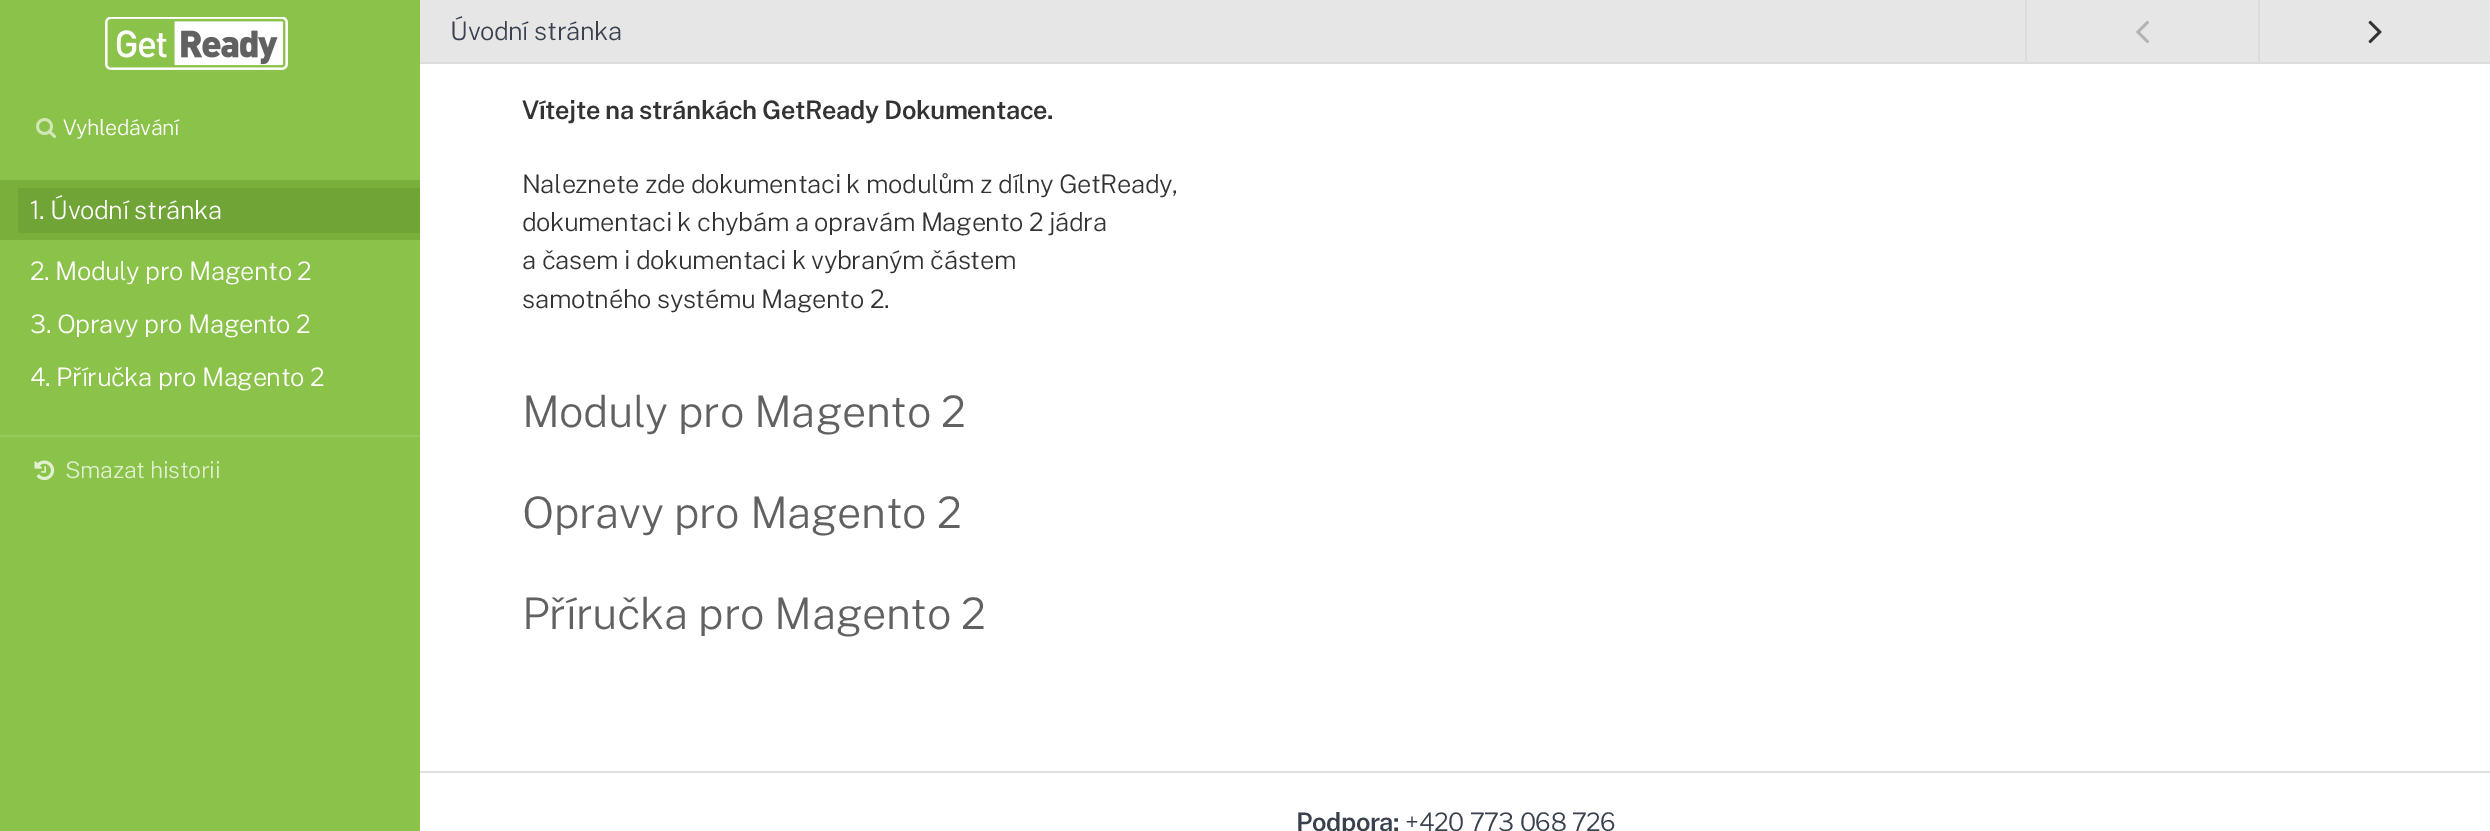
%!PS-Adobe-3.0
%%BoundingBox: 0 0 2490 831
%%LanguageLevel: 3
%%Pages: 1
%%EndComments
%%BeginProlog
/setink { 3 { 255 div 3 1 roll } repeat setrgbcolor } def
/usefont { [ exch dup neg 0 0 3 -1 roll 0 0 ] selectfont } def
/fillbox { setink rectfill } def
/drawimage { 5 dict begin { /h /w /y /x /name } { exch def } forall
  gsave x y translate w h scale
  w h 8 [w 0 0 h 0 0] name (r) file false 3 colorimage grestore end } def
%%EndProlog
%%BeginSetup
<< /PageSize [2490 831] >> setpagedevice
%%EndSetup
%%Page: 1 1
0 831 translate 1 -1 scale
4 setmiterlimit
0 0 2490 831 255 255 255 fillbox
0 0 420 831 139 195 74 fillbox
(assets/img1.rgb) 105 17 183 53 drawimage
(assets/img2.rgb) 36 118 21 21 drawimage
/PublicSans-Light 21.5 usefont
255 255 255 setink
63 135 moveto -0.45 0 (Vyhledávání) ashow
0 180 420 60 121 175 58 fillbox
18 188 402 45 113 164 54 fillbox
/PublicSans-Light 25.5 usefont
255 255 255 setink
30 219 moveto -0.45 0 (1. Úvodní stránka) ashow
30 280 moveto -0.45 0 (2. Moduly pro Magento 2) ashow
30 333 moveto -0.45 0 (3. Opravy pro Magento 2) ashow
30 386 moveto -0.45 0 (4. Příručka pro Magento 2) ashow
0 435 420 2 151 201 92 fillbox
(assets/img3.rgb) 34 460 21 21 drawimage
/PublicSans-Light 23 usefont
226 240 210 setink
65 478 moveto -0.45 0 (Smazat historii) ashow
420 0 2070 62 230 230 230 fillbox
420 62 2070 2 220 220 220 fillbox
/PublicSans-Light 25.5 usefont
58 65 78 setink
450 40 moveto -0.45 0 (Úvodní stránka) ashow
2025 0 2 62 220 220 220 fillbox
(assets/img4.rgb) 2136 20 13 24 drawimage
2258 0 2 62 220 220 220 fillbox
(assets/img5.rgb) 2368 20 14 24 drawimage
/PublicSans-SemiBold 25.5 usefont
51 51 51 setink
522 119 moveto -0.45 0 (Vítejte na stránkách GetReady Dokumentace.) ashow
/PublicSans-Light 25.5 usefont
522 193 moveto -0.45 0 (Naleznete zde dokumentaci k modulům z dílny GetReady,) ashow
522 231 moveto -0.45 0 (dokumentaci k chybám a opravám Magento 2 jádra) ashow
522 269 moveto -0.45 0 (a časem i dokumentaci k vybraným částem) ashow
522 308 moveto -0.45 0 (samotného systému Magento 2.) ashow
/PublicSans-Light 43.5 usefont
97 97 97 setink
522 427 moveto -0.45 0 (Moduly pro Magento 2) ashow
522 528 moveto -0.45 0 (Opravy pro Magento 2) ashow
522 629 moveto -0.45 0 (Příručka pro Magento 2) ashow
420 771 2070 2 224 224 224 fillbox
/PublicSans-SemiBold 25.5 usefont
58 65 78 setink
1296 831 moveto -0.45 0 (Podpora:) ashow
/PublicSans-Light 25.5 usefont
1405 831 moveto -0.45 0 (+420 773 068 726) ashow
showpage
%%EOF
